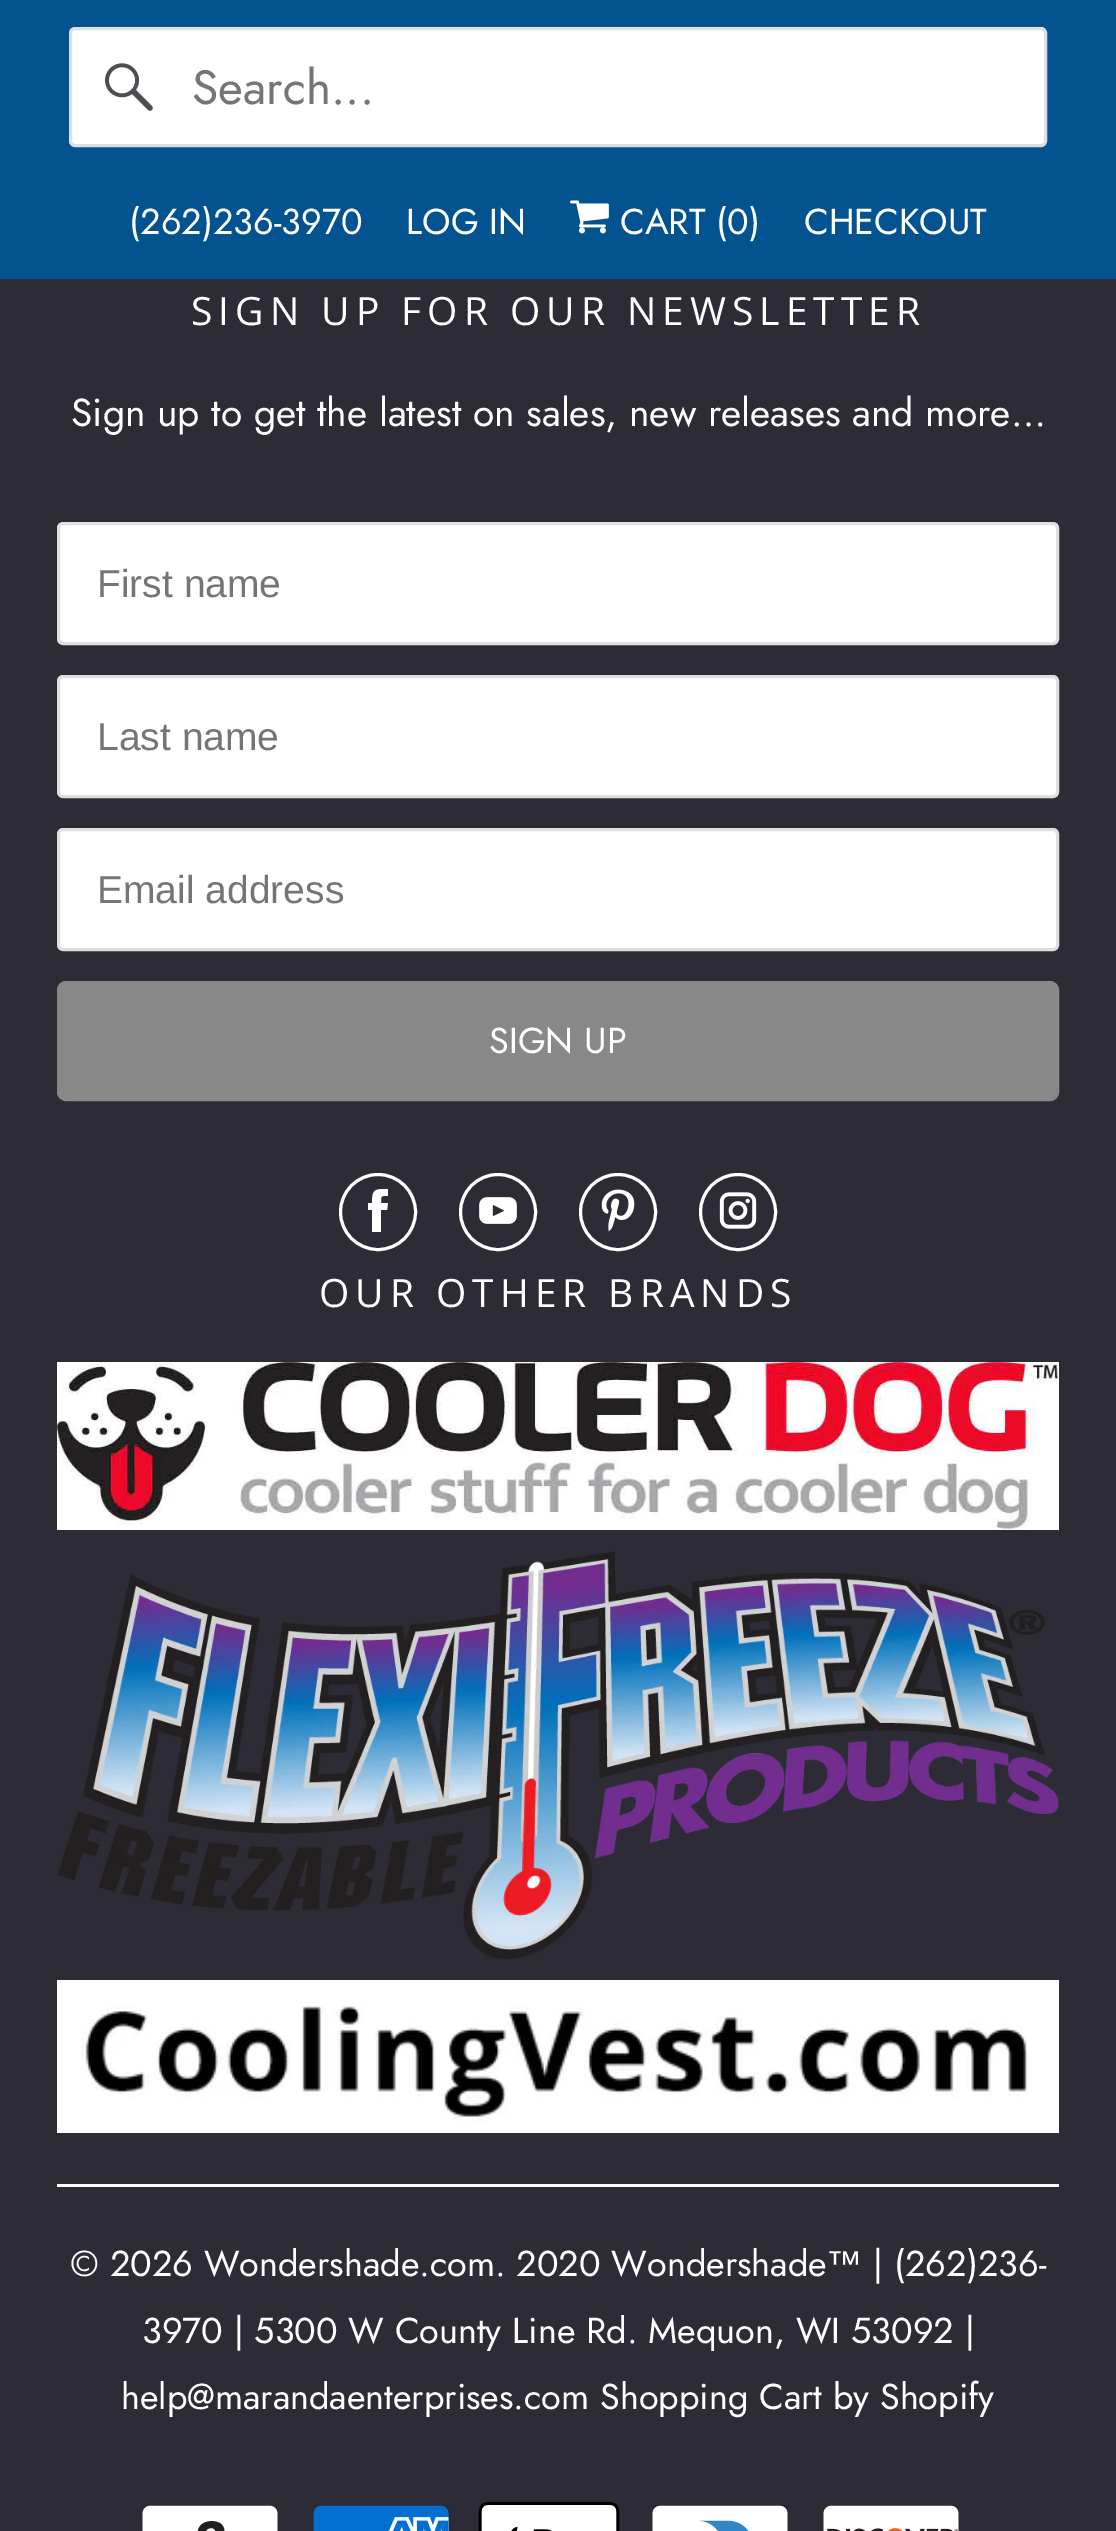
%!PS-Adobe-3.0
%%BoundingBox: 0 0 1116 2531
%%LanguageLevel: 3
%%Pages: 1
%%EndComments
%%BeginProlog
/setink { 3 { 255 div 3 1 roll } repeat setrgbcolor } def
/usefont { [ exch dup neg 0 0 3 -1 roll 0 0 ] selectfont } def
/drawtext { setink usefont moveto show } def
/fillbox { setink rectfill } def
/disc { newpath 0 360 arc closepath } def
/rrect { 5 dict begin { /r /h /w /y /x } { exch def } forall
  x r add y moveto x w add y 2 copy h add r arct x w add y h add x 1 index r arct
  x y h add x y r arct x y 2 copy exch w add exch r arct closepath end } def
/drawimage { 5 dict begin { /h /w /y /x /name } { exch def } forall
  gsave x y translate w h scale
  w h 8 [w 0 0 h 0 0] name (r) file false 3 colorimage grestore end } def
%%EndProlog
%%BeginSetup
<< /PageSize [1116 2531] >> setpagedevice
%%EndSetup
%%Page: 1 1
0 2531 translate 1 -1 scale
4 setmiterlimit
0 0 1116 2531 45 43 53 fillbox
0 0 1116 279 4 83 145 fillbox
255 255 255 setink
70.5 28.5 975 117 4.5 rrect gsave fill grestore
223 223 223 setink
3 setlinewidth
stroke
(assets/img1.rgb) 105 63 48 48 drawimage
(Search...) 192 104 /Jost-Regular 48 117 117 117 drawtext
(\(262\)236-3970) 129 234 /Jost-Regular 36 255 255 255 drawtext
(LOG IN) 406 234 /Jost-Regular 36 255 255 255 drawtext
(assets/img2.rgb) 570 200 39 34 drawimage
(CART \(0\)) 620 234 /Jost-Regular 36 255 255 255 drawtext
(CHECKOUT) 804 234 /Jost-Regular 36 255 255 255 drawtext
/OpenSans-Regular 39 usefont
191 325 moveto 6 0 (SIGN UP FOR OUR NEWSLETTER) ashow
(Sign up to get the latest on sales, new releases and more…) 71 426 /Jost-Regular 39 255 255 255 drawtext
58.5 523.5 999 120 4.5 rrect gsave fill grestore
223 223 223 setink
stroke
(First name) 97 597 /LiberationSans-Regular 39 117 117 117 drawtext
255 255 255 setink
58.5 676.5 999 120 4.5 rrect gsave fill grestore
223 223 223 setink
stroke
(Last name) 97 750 /LiberationSans-Regular 39 117 117 117 drawtext
255 255 255 setink
58.5 829.5 999 120 4.5 rrect gsave fill grestore
223 223 223 setink
stroke
(Email address) 97 903 /LiberationSans-Regular 39 117 117 117 drawtext
136 136 136 setink
58.5 982.5 999 117 7.5 rrect gsave fill grestore
stroke
(SIGN UP) 489 1053 /Jost-Regular 36 255 255 255 drawtext
378 1212 37.5 disc stroke
388 1203 moveto 387 1210 lineto 381 1210 lineto 381 1232 lineto 372 1232 lineto 372 1210 lineto 368 1210 lineto 368 1203 lineto 372 1203 lineto 372 1189 375 1189 388 1189 curveto 388 1196 lineto 381 1196 381 1195 381 1203 curveto closepath fill
498 1212 37.5 disc stroke
(assets/img3.rgb) 479 1197 38 27 drawimage
618 1212 37.5 disc stroke
(assets/img4.rgb) 601 1189 34 43 drawimage
738 1212 37.5 disc stroke
(assets/img5.rgb) 719 1192 38 37 drawimage
/OpenSans-Regular 39 usefont
319 1307 moveto 6 0 (OUR OTHER BRANDS) ashow
(assets/img6.rgb) 57 1362 1002 168 drawimage
(assets/img7.rgb) 58 1551 1001 408 drawimage
(assets/img8.rgb) 57 1980 1002 153 drawimage
57 2184 1002 3 255 255 255 fillbox
(© 2026 Wondershade.com. 2020 Wondershade) 70 2276 /Jost-Regular 36 255 255 255 drawtext
(™) 826 2276 /LiberationSans-Regular 36 255 255 255 drawtext
(| \(262\)236-) 873 2276 /Jost-Regular 36 255 255 255 drawtext
(3970 | 5300 W County Line Rd. Mequon, WI 53092 |) 142 2343 /Jost-Regular 36 255 255 255 drawtext
(help@marandaenterprises.com Shopping Cart by Shopify) 121 2409 /Jost-Regular 36 255 255 255 drawtext
(assets/img9.rgb) 142 2505 136 26 drawimage
(assets/img10.rgb) 313 2505 136 26 drawimage
(assets/img11.rgb) 478 2502 142 29 drawimage
(assets/img12.rgb) 652 2505 136 26 drawimage
(assets/img13.rgb) 823 2505 136 26 drawimage
showpage
%%EOF
